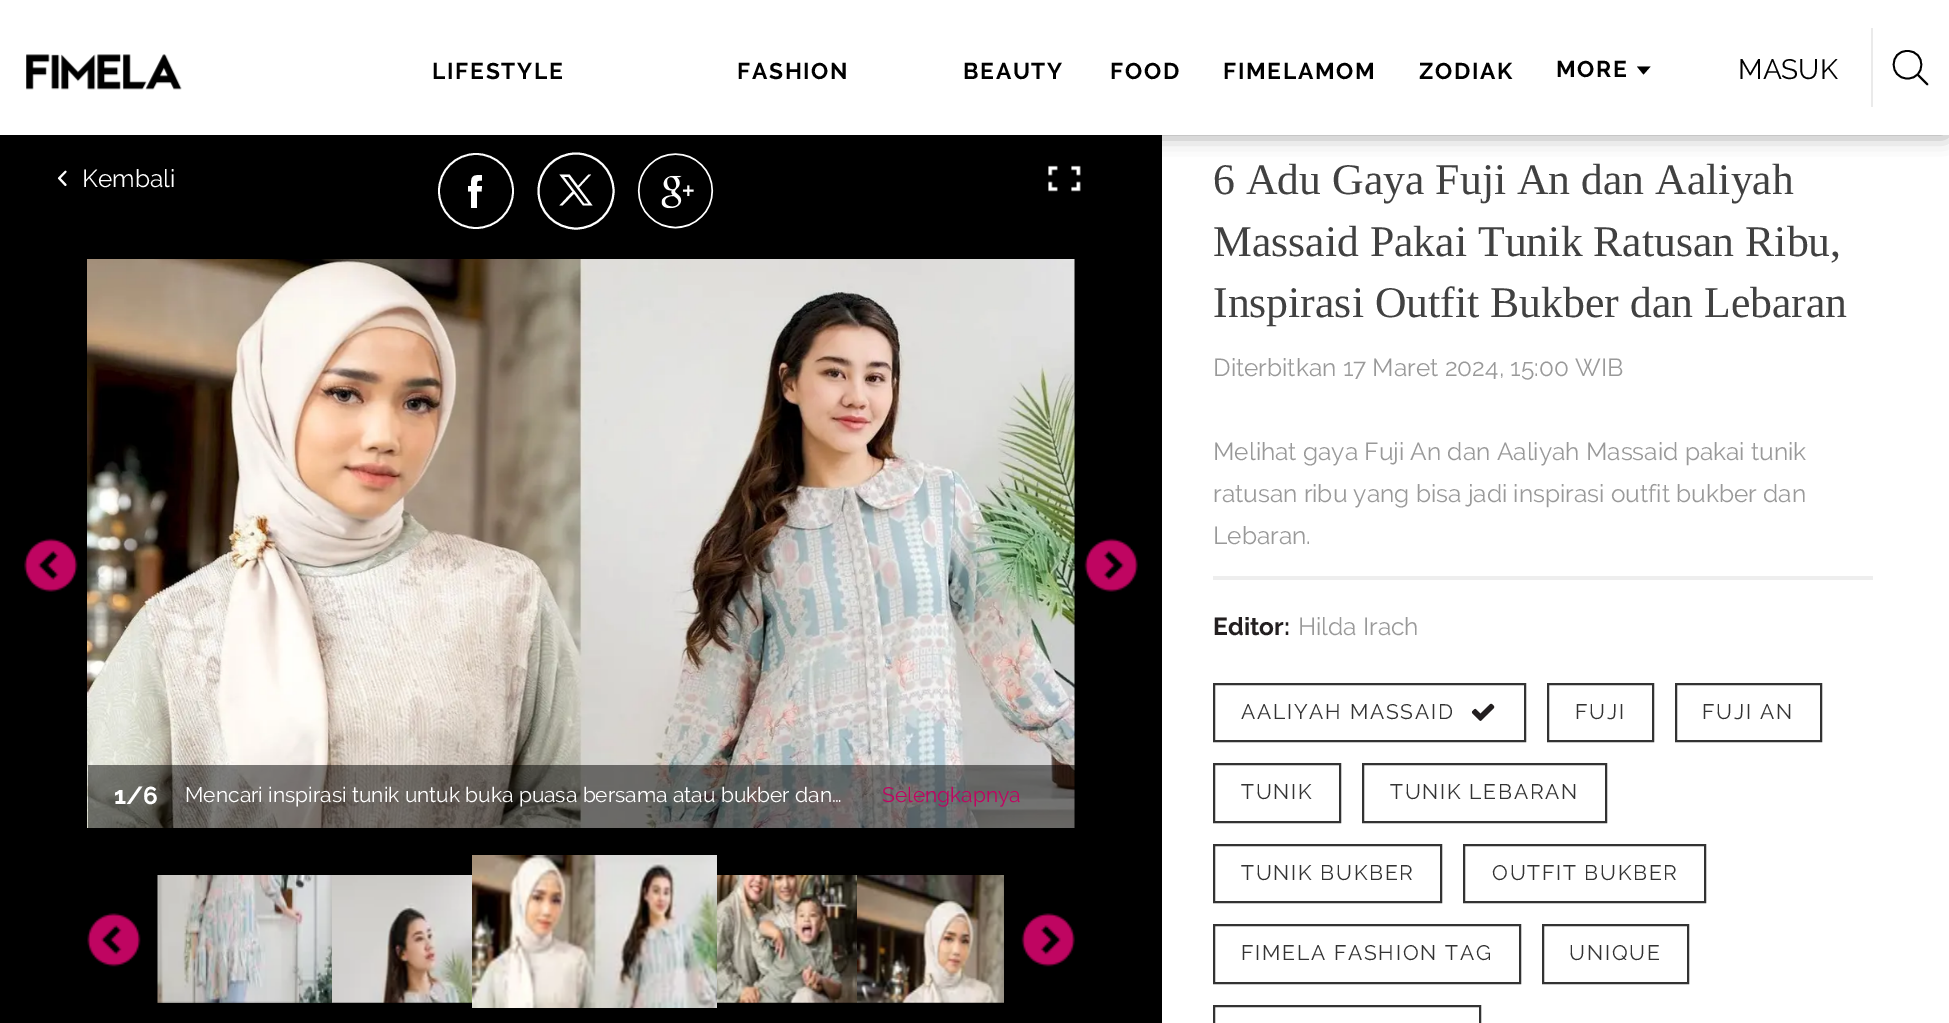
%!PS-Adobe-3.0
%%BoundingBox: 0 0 1949 1023
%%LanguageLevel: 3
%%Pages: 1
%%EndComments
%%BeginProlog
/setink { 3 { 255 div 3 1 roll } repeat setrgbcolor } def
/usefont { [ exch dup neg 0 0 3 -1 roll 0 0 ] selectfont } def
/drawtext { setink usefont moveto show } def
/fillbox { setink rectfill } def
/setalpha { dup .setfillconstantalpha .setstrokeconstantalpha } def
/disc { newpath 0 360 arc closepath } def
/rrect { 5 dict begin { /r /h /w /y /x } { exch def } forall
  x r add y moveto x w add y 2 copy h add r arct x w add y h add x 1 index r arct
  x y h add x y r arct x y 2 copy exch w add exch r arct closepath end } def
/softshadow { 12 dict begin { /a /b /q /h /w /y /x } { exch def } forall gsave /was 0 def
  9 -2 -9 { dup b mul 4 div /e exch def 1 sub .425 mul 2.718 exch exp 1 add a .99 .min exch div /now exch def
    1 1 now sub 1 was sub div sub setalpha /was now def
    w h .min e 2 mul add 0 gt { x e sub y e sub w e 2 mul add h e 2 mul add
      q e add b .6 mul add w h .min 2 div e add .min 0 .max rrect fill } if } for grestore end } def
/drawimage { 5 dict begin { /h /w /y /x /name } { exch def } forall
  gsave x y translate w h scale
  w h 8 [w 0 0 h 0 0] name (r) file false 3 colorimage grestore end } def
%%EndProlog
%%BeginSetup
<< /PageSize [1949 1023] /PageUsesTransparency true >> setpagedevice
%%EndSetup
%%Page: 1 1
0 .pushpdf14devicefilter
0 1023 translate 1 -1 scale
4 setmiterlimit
0 0 1949 1023 255 255 255 fillbox
0 135 1162 888 0 0 0 fillbox
255 255 255 setink
1.8 setlinewidth
476 191 37 disc stroke
2 setlinewidth
576 191 37.5 disc stroke
(assets/img3.rgb) 637 153 77 76 drawimage
(assets/img4.rgb) 1048 165 33 27 drawimage
0 0 0 setink
4 5 1942 128 0 10.5 0.5 softshadow
0 0 1949 135 255 255 255 fillbox
(assets/img1.rgb) 26 54 156 36 drawimage
/Raleway-Bold 22.75 usefont
0 0 0 setink
432 79 moveto 1.75 0 (LIFESTYLE) ashow
737 79 moveto 1.75 0 (FASHION) ashow
963 79 moveto 1.75 0 (BEAUTY) ashow
1110 79 moveto 1.75 0 (FOOD) ashow
1223 79 moveto 1.75 0 (FIMELAMOM) ashow
1419 79 moveto 1.75 0 (ZODIAK) ashow
1556 77 moveto 1.75 0 (MORE) ashow
1637 66.5 moveto 1650.5 66.5 lineto 1643.5 74.5 lineto closepath eofill
1871 28 2 79 234 234 234 fillbox
(MASUK) 1738 79 /Raleway-Regular 28 0 0 0 drawtext
1.8 setlinewidth
1 setlinejoin
1907.5 78.5 moveto 1889 78.5 1889 50.5 1907.5 51 curveto 1926 51 1926 78.5 1907.5 78.5 curveto closepath stroke
1 setlinecap
1918 75 moveto 1927.5 84.5 lineto stroke
(assets/img2.rgb) 57 170 10 17 drawimage
(Kembali) 82 187 /Raleway-Regular 24.5 255 255 255 drawtext
471 208 moveto 471 191.5 lineto 468 191.5 lineto 468 186 lineto 471 186 lineto 471 176 472 175 482 175 curveto 482 180.5 lineto 476.5 180.5 477 181 477 186 curveto 482 186 lineto 481.5 191.5 lineto 477 191.5 lineto 477 208 lineto closepath eofill
559.5 174.5 moveto 572.5 191.5 lineto 559.5 205.5 lineto 562.5 205.5 lineto 574 193.5 lineto 583 205.5 lineto 592.5 205.5 lineto 579 187.5 lineto 591 174.5 lineto 588.5 174.5 lineto 578 186 lineto 569.5 174.5 lineto closepath 564 177 moveto 568.5 177 lineto 588.5 203.5 lineto 584 203.5 lineto closepath fill
(assets/img5.rgb) 24 538 54 54 drawimage
(assets/img6.rgb) 1084 538 54 54 drawimage
(assets/img7.rgb) 87 259 988 569 drawimage
0.5 setalpha
88 765 987 63 0 0 0 fillbox
1 setalpha
(1/6) 114 804 /Raleway-Bold 24.5 255 255 255 drawtext
(Mencari inspirasi tunik untuk buka puasa bersama atau bukber dan…) 185 802 /Raleway-Regular 21 255 255 255 drawtext
(Selengkapnya) 882 802 /Raleway-Regular 21 191 5 97 drawtext
(assets/img8.rgb) 87 913 54 54 drawimage
(assets/img9.rgb) 157 875 176 128 drawimage
(assets/img10.rgb) 332 875 140 128 drawimage
(assets/img11.rgb) 472 855 245 153 drawimage
(assets/img12.rgb) 717 875 141 128 drawimage
(assets/img13.rgb) 857 875 147 128 drawimage
(assets/img14.rgb) 1021 913 54 54 drawimage
(6 Adu Gaya Fuji An dan Aaliyah) 1213 194 /LiberationSerif-Regular 43.75 65 65 65 drawtext
(Massaid Pakai Tunik Ratusan Ribu,) 1213 256 /LiberationSerif-Regular 43.75 65 65 65 drawtext
(Inspirasi Outfit Bukber dan Lebaran) 1213 317 /LiberationSerif-Regular 43.75 65 65 65 drawtext
(Diterbitkan 17 Maret 2024, 15:00 WIB) 1213 376 /Raleway-Regular 24.5 153 153 153 drawtext
(Melihat gaya Fuji An dan Aaliyah Massaid pakai tunik) 1213 460 /Raleway-Regular 24.5 153 153 153 drawtext
(ratusan ribu yang bisa jadi inspirasi outfit bukber dan) 1213 502 /Raleway-Regular 24.5 153 153 153 drawtext
(Lebaran.) 1213 544 /Raleway-Regular 24.5 153 153 153 drawtext
1213 576 660 4 238 238 238 fillbox
(Editor:) 1213 635 /Raleway-Bold 24.5 35 31 32 drawtext
(Hilda Irach) 1298 635 /Raleway-Regular 24.5 153 153 153 drawtext
51 51 51 setink
2 setlinewidth
0 setlinecap
0 setlinejoin
1214 684 311 57 rectstroke
/Raleway-Regular 21 usefont
1241 719 moveto 1.75 0 (AALIYAH MASSAID) ashow
(assets/img15.rgb) 1471 703 24 18 drawimage
1548 684 105 57 rectstroke
1575 719 moveto 1.75 0 (FUJI) ashow
1676 684 145 57 rectstroke
1702 719 moveto 1.75 0 (FUJI AN) ashow
1214 764 126 58 rectstroke
1241 799 moveto 1.75 0 (TUNIK) ashow
1363 764 243 58 rectstroke
1390 799 moveto 1.75 0 (TUNIK LEBARAN) ashow
1214 845 227 57 rectstroke
1241 880 moveto 1.75 0 (TUNIK BUKBER) ashow
1464 845 241 57 rectstroke
1492 880 moveto 1.75 0 (OUTFIT BUKBER) ashow
1214 925 306 58 rectstroke
1241 960 moveto 1.75 0 (FIMELA FASHION TAG) ashow
1543 925 145 58 rectstroke
1569 960 moveto 1.75 0 (UNIQUE) ashow
1214 1006 266 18 rectstroke
.poppdf14devicefilter showpage
%%EOF
